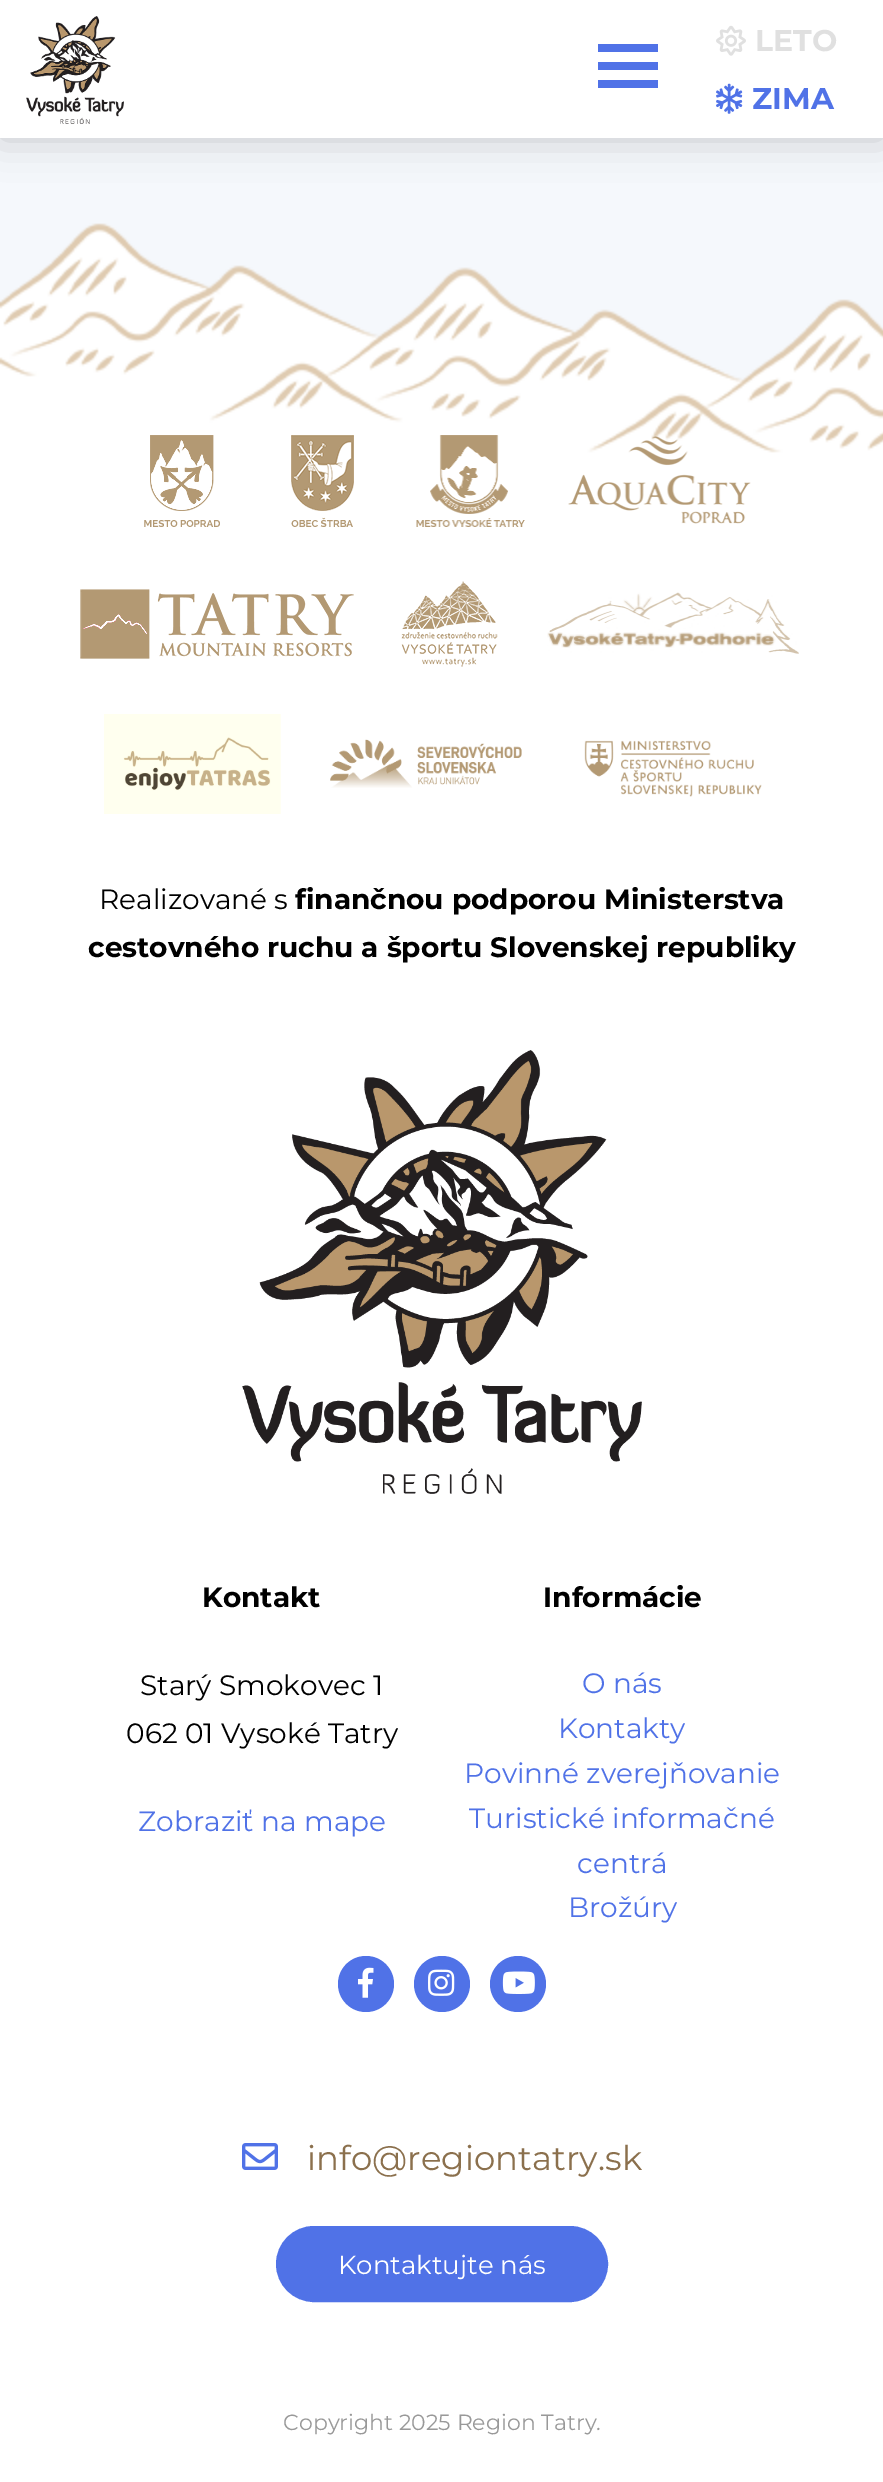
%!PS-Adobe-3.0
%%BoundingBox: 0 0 883 2482
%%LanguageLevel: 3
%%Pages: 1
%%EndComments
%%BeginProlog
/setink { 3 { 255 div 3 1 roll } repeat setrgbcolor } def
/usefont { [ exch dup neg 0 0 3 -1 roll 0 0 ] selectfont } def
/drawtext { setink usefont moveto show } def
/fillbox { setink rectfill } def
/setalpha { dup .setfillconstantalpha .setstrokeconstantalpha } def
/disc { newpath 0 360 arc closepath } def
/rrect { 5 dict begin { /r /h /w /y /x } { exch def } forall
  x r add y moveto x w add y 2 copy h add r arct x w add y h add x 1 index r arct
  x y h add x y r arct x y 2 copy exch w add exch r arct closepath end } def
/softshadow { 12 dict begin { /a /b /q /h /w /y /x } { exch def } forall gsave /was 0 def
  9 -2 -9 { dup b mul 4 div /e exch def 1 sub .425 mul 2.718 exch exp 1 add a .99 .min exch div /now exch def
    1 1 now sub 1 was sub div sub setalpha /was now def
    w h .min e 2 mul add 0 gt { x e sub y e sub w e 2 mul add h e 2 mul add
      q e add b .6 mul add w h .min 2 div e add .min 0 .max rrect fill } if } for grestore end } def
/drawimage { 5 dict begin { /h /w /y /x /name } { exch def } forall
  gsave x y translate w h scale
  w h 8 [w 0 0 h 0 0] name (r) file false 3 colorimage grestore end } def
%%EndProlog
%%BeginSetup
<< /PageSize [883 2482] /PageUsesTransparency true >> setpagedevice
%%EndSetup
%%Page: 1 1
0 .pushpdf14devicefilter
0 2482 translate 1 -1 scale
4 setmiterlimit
0 0 883 2482 255 255 255 fillbox
(assets/img4.rgb) 0 138 883 315 drawimage
0 0 0 setink
0 0 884 138 0 20 0.2 softshadow
0 0 883 138 255 255 255 fillbox
(assets/img1.rgb) 26 16 98 108 drawimage
598 44 60 8 80 114 231 fillbox
598 62 60 8 80 114 231 fillbox
598 80 60 8 80 114 231 fillbox
(assets/img2.rgb) 716 25 30 31 drawimage
(LETO) 755 51 /Montserrat-Bold 30 224 224 224 drawtext
(assets/img3.rgb) 716 83 27 31 drawimage
(ZIMA) 752 109 /Montserrat-Bold 30 80 114 231 drawtext
(assets/img5.rgb) 144 435 76 92 drawimage
(assets/img6.rgb) 291 435 63 92 drawimage
(assets/img7.rgb) 416 435 109 92 drawimage
(assets/img8.rgb) 568 436 183 88 drawimage
(assets/img9.rgb) 80 589 274 70 drawimage
(assets/img10.rgb) 401 581 97 86 drawimage
(assets/img11.rgb) 547 592 252 62 drawimage
(assets/img12.rgb) 104 714 177 100 drawimage
(assets/img13.rgb) 330 739 192 49 drawimage
(assets/img14.rgb) 584 740 178 57 drawimage
(Realizované s) 99 909 /Montserrat-Regular 28 0 0 0 drawtext
(finančnou podporou Ministerstva) 295 909 /Montserrat-Bold 28 0 0 0 drawtext
(cestovného ruchu a športu Slovenskej republiky) 88 957 /Montserrat-Bold 28 0 0 0 drawtext
(assets/img15.rgb) 242 1050 400 444 drawimage
(Kontakt) 202 1607 /Montserrat-Bold 28 0 0 0 drawtext
(Starý Smokovec 1) 140 1695 /Montserrat-Regular 28 0 0 0 drawtext
(062 01 Vysoké Tatry) 126 1743 /Montserrat-Regular 28 0 0 0 drawtext
(Zobraziť na mape) 138 1831 /Montserrat-Regular 28 80 114 231 drawtext
(Informácie) 543 1607 /Montserrat-Bold 28 0 0 0 drawtext
(O nás) 582 1693 /Montserrat-Regular 28 80 114 231 drawtext
(Kontakty) 558 1738 /Montserrat-Regular 28 80 114 231 drawtext
(Povinné zverejňovanie) 464 1783 /Montserrat-Regular 28 80 114 231 drawtext
(Turistické informačné) 469 1828 /Montserrat-Regular 28 80 114 231 drawtext
(centrá) 577 1873 /Montserrat-Regular 28 80 114 231 drawtext
(Brožúry) 568 1917 /Montserrat-Regular 28 80 114 231 drawtext
366 1984 28 disc fill
(assets/img16.rgb) 358 1967 16 31 drawimage
442 1984 28 disc fill
(assets/img17.rgb) 428 1969 27 27 drawimage
518 1984 28 disc fill
(assets/img18.rgb) 502 1971 33 23 drawimage
(assets/img19.rgb) 242 2143 36 27 drawimage
(info@regiontatry.sk) 307 2170 /Montserrat-Regular 34 139 112 77 drawtext
80 114 231 setink
277 2227 330 74 37 rrect gsave fill grestore
2 setlinewidth
stroke
(Kontaktujte nás) 338 2274 /Montserrat-Regular 26 255 255 255 drawtext
(Copyright 2025 Region Tatry.) 283 2430 /Montserrat-Regular 22 153 153 153 drawtext
.poppdf14devicefilter showpage
%%EOF
